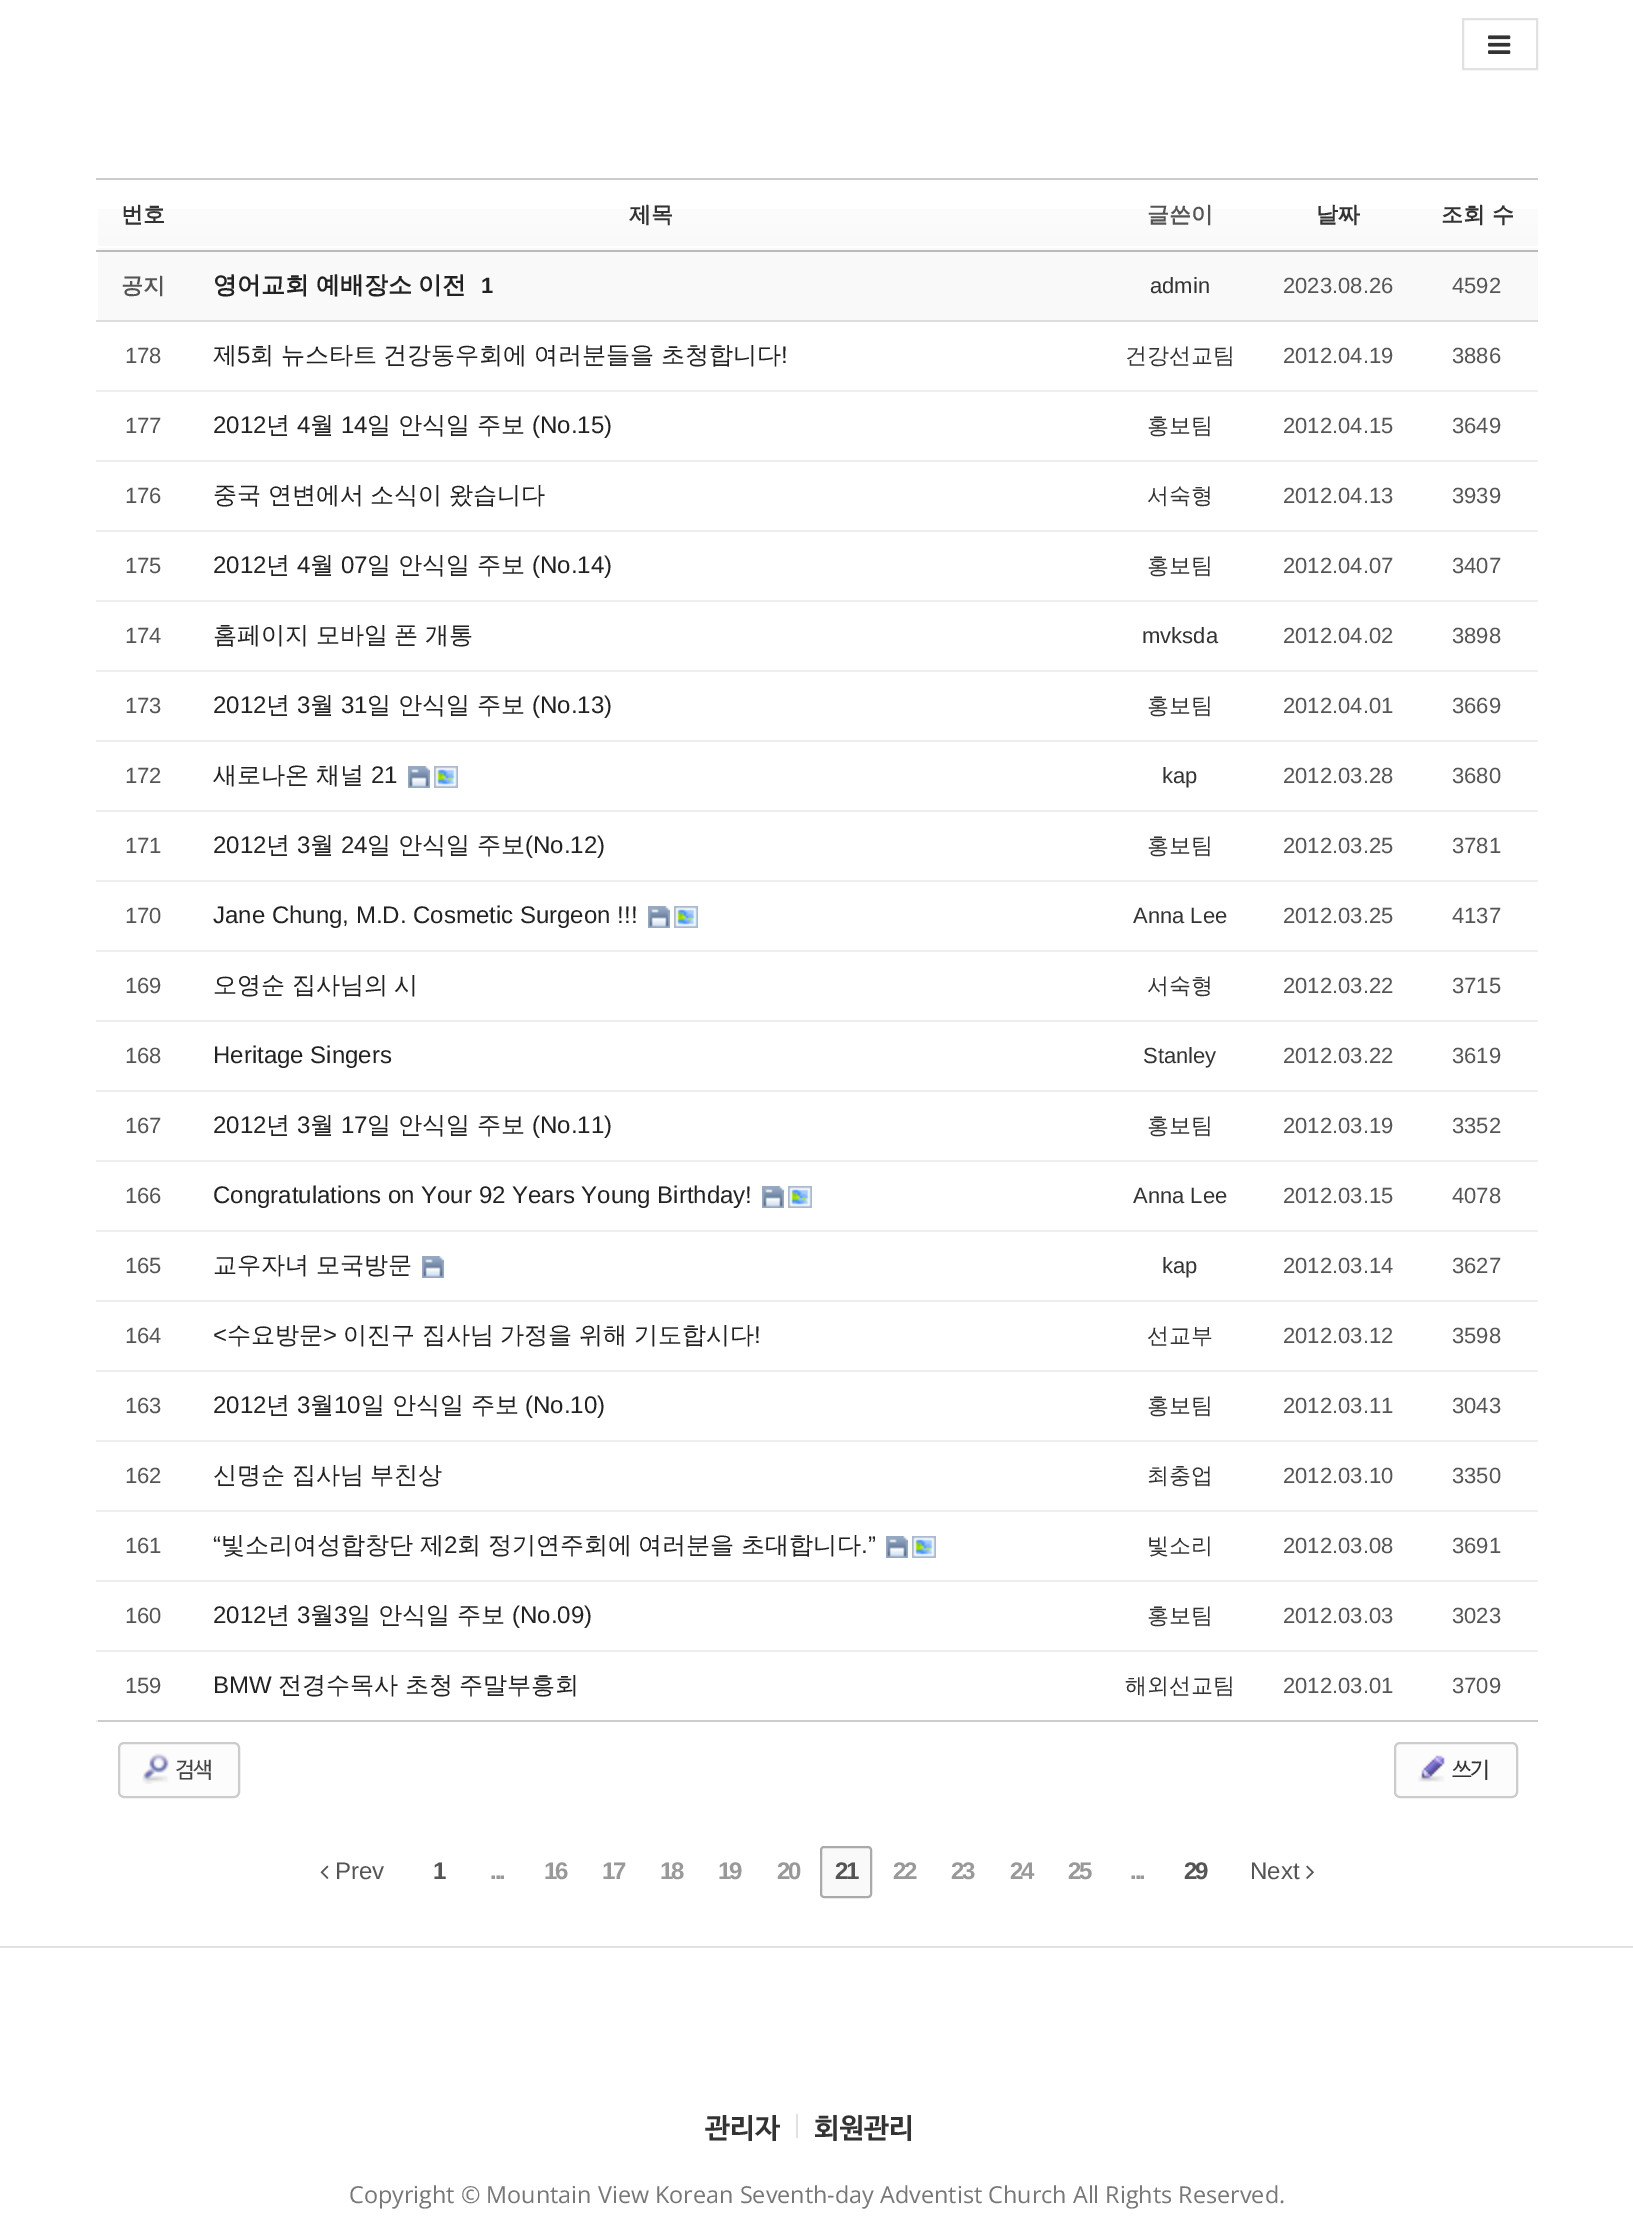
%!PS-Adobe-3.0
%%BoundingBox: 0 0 1633 2237
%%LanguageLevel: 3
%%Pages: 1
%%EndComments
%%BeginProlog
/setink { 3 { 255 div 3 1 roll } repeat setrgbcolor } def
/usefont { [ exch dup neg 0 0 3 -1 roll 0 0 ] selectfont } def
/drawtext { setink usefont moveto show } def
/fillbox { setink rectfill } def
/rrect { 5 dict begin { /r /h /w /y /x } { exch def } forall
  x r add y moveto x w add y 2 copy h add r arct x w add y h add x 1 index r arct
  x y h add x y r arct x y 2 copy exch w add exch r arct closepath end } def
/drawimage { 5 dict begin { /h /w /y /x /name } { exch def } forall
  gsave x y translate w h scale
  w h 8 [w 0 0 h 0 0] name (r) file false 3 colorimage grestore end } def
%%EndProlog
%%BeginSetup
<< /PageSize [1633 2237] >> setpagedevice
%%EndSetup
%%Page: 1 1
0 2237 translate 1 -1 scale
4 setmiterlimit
0 0 1633 2237 255 255 255 fillbox
225 225 225 setink
2 setlinewidth
1463 19 74 50 rectstroke
(assets/img1.rgb) 1488 35 23 19 drawimage
gsave 98 209 moveto 1538 209 lineto 1538 250 lineto 98 250 lineto closepath clip newpath
<< /ShadingType 2 /ColorSpace /DeviceRGB /Coords [818 180 818 250] /Extend [true true] /Function << /FunctionType 2 /Domain [0 1] /C0 [1 1 1] /C1 [0.976 0.976 0.976] /N 1 >> >> shfill grestore
98 246 1440 2 255 255 255 fillbox
(번호) 121 222 /WenQuanYiZenHei-Bold 22 51 51 51 drawtext
(제목) 629 222 /WenQuanYiZenHei-Bold 22 51 51 51 drawtext
(글쓴이) 1147 222 /WenQuanYiZenHei-Bold 22 85 85 85 drawtext
(날짜) 1316 222 /WenQuanYiZenHei-Bold 22 51 51 51 drawtext
96 178 1442 2 204 204 204 fillbox
96 250 1442 2 187 187 187 fillbox
(조회 수) 1441 222 /WenQuanYiZenHei-Bold 22 51 51 51 drawtext
98 252 1440 68 249 249 249 fillbox
(공지) 121 293 /WenQuanYiZenHei-Bold 22 85 85 85 drawtext
/WenQuanYiZenHei-Bold 24 usefont
34 34 34 setink
213 293 moveto -0.5 0 32 (영어교회 예배장소 이전) widthshow
(1) 481 293 /LiberationSans-Bold 22 34 34 34 drawtext
(admin) 1150 293 /LiberationSans-Regular 22 51 51 51 drawtext
(2023.08.26) 1283 293 /LiberationSans-Regular 22 85 85 85 drawtext
96 320 1442 2 221 221 221 fillbox
(4592) 1452 293 /LiberationSans-Regular 22 85 85 85 drawtext
(178) 125 363 /LiberationSans-Regular 22 85 85 85 drawtext
(제) 213 363 /WenQuanYiZenHei-Medium 24 34 34 34 drawtext
(5) 237 363 /LiberationSans-Regular 24 34 34 34 drawtext
/WenQuanYiZenHei-Medium 24 usefont
250 363 moveto -0.5 0 32 (회 뉴스타트 건강동우회에 여러분들을 초청합니다) widthshow
(!) 781 363 /LiberationSans-Regular 24 34 34 34 drawtext
(건강선교팀) 1125 363 /WenQuanYiZenHei-Medium 22 51 51 51 drawtext
(2012.04.19) 1283 363 /LiberationSans-Regular 22 85 85 85 drawtext
96 390 1442 2 238 238 238 fillbox
(3886) 1452 363 /LiberationSans-Regular 22 85 85 85 drawtext
(177) 125 433 /LiberationSans-Regular 22 85 85 85 drawtext
(2012) 213 433 /LiberationSans-Regular 24 34 34 34 drawtext
(년) 266 433 /WenQuanYiZenHei-Medium 24 34 34 34 drawtext
(4) 297 433 /LiberationSans-Regular 24 34 34 34 drawtext
(월) 310 433 /WenQuanYiZenHei-Medium 24 34 34 34 drawtext
(14) 341 433 /LiberationSans-Regular 24 34 34 34 drawtext
(일 안식일 주보) 367 433 /WenQuanYiZenHei-Medium 24 34 34 34 drawtext
(\(No.15\)) 532 433 /LiberationSans-Regular 24 34 34 34 drawtext
(홍보팀) 1147 433 /WenQuanYiZenHei-Medium 22 51 51 51 drawtext
(2012.04.15) 1283 433 /LiberationSans-Regular 22 85 85 85 drawtext
96 460 1442 2 238 238 238 fillbox
(3649) 1452 433 /LiberationSans-Regular 22 85 85 85 drawtext
(176) 125 503 /LiberationSans-Regular 22 85 85 85 drawtext
/WenQuanYiZenHei-Medium 24 usefont
34 34 34 setink
213 503 moveto -0.5 0 32 (중국 연변에서 소식이 왔습니다) widthshow
(서숙형) 1147 503 /WenQuanYiZenHei-Medium 22 51 51 51 drawtext
(2012.04.13) 1283 503 /LiberationSans-Regular 22 85 85 85 drawtext
96 530 1442 2 238 238 238 fillbox
(3939) 1452 503 /LiberationSans-Regular 22 85 85 85 drawtext
(175) 125 573 /LiberationSans-Regular 22 85 85 85 drawtext
(2012) 213 573 /LiberationSans-Regular 24 34 34 34 drawtext
(년) 266 573 /WenQuanYiZenHei-Medium 24 34 34 34 drawtext
(4) 297 573 /LiberationSans-Regular 24 34 34 34 drawtext
(월) 310 573 /WenQuanYiZenHei-Medium 24 34 34 34 drawtext
(07) 341 573 /LiberationSans-Regular 24 34 34 34 drawtext
(일 안식일 주보) 367 573 /WenQuanYiZenHei-Medium 24 34 34 34 drawtext
(\(No.14\)) 532 573 /LiberationSans-Regular 24 34 34 34 drawtext
(홍보팀) 1147 573 /WenQuanYiZenHei-Medium 22 51 51 51 drawtext
(2012.04.07) 1283 573 /LiberationSans-Regular 22 85 85 85 drawtext
96 600 1442 2 238 238 238 fillbox
(3407) 1452 573 /LiberationSans-Regular 22 85 85 85 drawtext
(174) 125 643 /LiberationSans-Regular 22 85 85 85 drawtext
/WenQuanYiZenHei-Medium 24 usefont
34 34 34 setink
213 643 moveto -0.5 0 32 (홈페이지 모바일 폰 개통) widthshow
(mvksda) 1142 643 /LiberationSans-Regular 22 51 51 51 drawtext
(2012.04.02) 1283 643 /LiberationSans-Regular 22 85 85 85 drawtext
96 670 1442 2 238 238 238 fillbox
(3898) 1452 643 /LiberationSans-Regular 22 85 85 85 drawtext
(173) 125 713 /LiberationSans-Regular 22 85 85 85 drawtext
(2012) 213 713 /LiberationSans-Regular 24 34 34 34 drawtext
(년) 266 713 /WenQuanYiZenHei-Medium 24 34 34 34 drawtext
(3) 297 713 /LiberationSans-Regular 24 34 34 34 drawtext
(월) 310 713 /WenQuanYiZenHei-Medium 24 34 34 34 drawtext
(31) 341 713 /LiberationSans-Regular 24 34 34 34 drawtext
(일 안식일 주보) 367 713 /WenQuanYiZenHei-Medium 24 34 34 34 drawtext
(\(No.13\)) 532 713 /LiberationSans-Regular 24 34 34 34 drawtext
(홍보팀) 1147 713 /WenQuanYiZenHei-Medium 22 51 51 51 drawtext
(2012.04.01) 1283 713 /LiberationSans-Regular 22 85 85 85 drawtext
96 740 1442 2 238 238 238 fillbox
(3669) 1452 713 /LiberationSans-Regular 22 85 85 85 drawtext
(172) 125 783 /LiberationSans-Regular 22 85 85 85 drawtext
(새로나온 채널) 213 783 /WenQuanYiZenHei-Medium 24 34 34 34 drawtext
(21) 371 783 /LiberationSans-Regular 24 34 34 34 drawtext
(assets/img2.rgb) 408 766 22 22 drawimage
(assets/img3.rgb) 434 766 24 22 drawimage
(kap) 1162 783 /LiberationSans-Regular 22 51 51 51 drawtext
(2012.03.28) 1283 783 /LiberationSans-Regular 22 85 85 85 drawtext
96 810 1442 2 238 238 238 fillbox
(3680) 1452 783 /LiberationSans-Regular 22 85 85 85 drawtext
(171) 125 853 /LiberationSans-Regular 22 85 85 85 drawtext
(2012) 213 853 /LiberationSans-Regular 24 34 34 34 drawtext
(년) 266 853 /WenQuanYiZenHei-Medium 24 34 34 34 drawtext
(3) 297 853 /LiberationSans-Regular 24 34 34 34 drawtext
(월) 310 853 /WenQuanYiZenHei-Medium 24 34 34 34 drawtext
(24) 341 853 /LiberationSans-Regular 24 34 34 34 drawtext
(일 안식일 주보) 367 853 /WenQuanYiZenHei-Medium 24 34 34 34 drawtext
(\(No.12\)) 525 853 /LiberationSans-Regular 24 34 34 34 drawtext
(홍보팀) 1147 853 /WenQuanYiZenHei-Medium 22 51 51 51 drawtext
(2012.03.25) 1283 853 /LiberationSans-Regular 22 85 85 85 drawtext
96 880 1442 2 238 238 238 fillbox
(3781) 1452 853 /LiberationSans-Regular 22 85 85 85 drawtext
(170) 125 923 /LiberationSans-Regular 22 85 85 85 drawtext
(Jane Chung, M.D. Cosmetic Surgeon !!!) 213 923 /LiberationSans-Regular 24 34 34 34 drawtext
(assets/img2.rgb) 648 906 22 22 drawimage
(assets/img3.rgb) 674 906 24 22 drawimage
(Anna Lee) 1133 923 /LiberationSans-Regular 22 51 51 51 drawtext
(2012.03.25) 1283 923 /LiberationSans-Regular 22 85 85 85 drawtext
96 950 1442 2 238 238 238 fillbox
(4137) 1452 923 /LiberationSans-Regular 22 85 85 85 drawtext
(169) 125 993 /LiberationSans-Regular 22 85 85 85 drawtext
/WenQuanYiZenHei-Medium 24 usefont
34 34 34 setink
213 993 moveto -0.5 0 32 (오영순 집사님의 시) widthshow
(서숙형) 1147 993 /WenQuanYiZenHei-Medium 22 51 51 51 drawtext
(2012.03.22) 1283 993 /LiberationSans-Regular 22 85 85 85 drawtext
96 1020 1442 2 238 238 238 fillbox
(3715) 1452 993 /LiberationSans-Regular 22 85 85 85 drawtext
(168) 125 1063 /LiberationSans-Regular 22 85 85 85 drawtext
(Heritage Singers) 213 1063 /LiberationSans-Regular 24 34 34 34 drawtext
(Stanley) 1143 1063 /LiberationSans-Regular 22 51 51 51 drawtext
(2012.03.22) 1283 1063 /LiberationSans-Regular 22 85 85 85 drawtext
96 1090 1442 2 238 238 238 fillbox
(3619) 1452 1063 /LiberationSans-Regular 22 85 85 85 drawtext
(167) 125 1133 /LiberationSans-Regular 22 85 85 85 drawtext
(2012) 213 1133 /LiberationSans-Regular 24 34 34 34 drawtext
(년) 266 1133 /WenQuanYiZenHei-Medium 24 34 34 34 drawtext
(3) 297 1133 /LiberationSans-Regular 24 34 34 34 drawtext
(월) 310 1133 /WenQuanYiZenHei-Medium 24 34 34 34 drawtext
(17) 341 1133 /LiberationSans-Regular 24 34 34 34 drawtext
(일 안식일 주보) 367 1133 /WenQuanYiZenHei-Medium 24 34 34 34 drawtext
(\(No.11\)) 532 1133 /LiberationSans-Regular 24 34 34 34 drawtext
(홍보팀) 1147 1133 /WenQuanYiZenHei-Medium 22 51 51 51 drawtext
(2012.03.19) 1283 1133 /LiberationSans-Regular 22 85 85 85 drawtext
96 1160 1442 2 238 238 238 fillbox
(3352) 1452 1133 /LiberationSans-Regular 22 85 85 85 drawtext
(166) 125 1203 /LiberationSans-Regular 22 85 85 85 drawtext
(Congratulations on Your 92 Years Young Birthday!) 213 1203 /LiberationSans-Regular 24 34 34 34 drawtext
(assets/img2.rgb) 762 1186 22 22 drawimage
(assets/img3.rgb) 788 1186 24 22 drawimage
(Anna Lee) 1133 1203 /LiberationSans-Regular 22 51 51 51 drawtext
(2012.03.15) 1283 1203 /LiberationSans-Regular 22 85 85 85 drawtext
96 1230 1442 2 238 238 238 fillbox
(4078) 1452 1203 /LiberationSans-Regular 22 85 85 85 drawtext
(165) 125 1273 /LiberationSans-Regular 22 85 85 85 drawtext
/WenQuanYiZenHei-Medium 24 usefont
34 34 34 setink
213 1273 moveto -0.5 0 32 (교우자녀 모국방문) widthshow
(assets/img2.rgb) 422 1256 22 22 drawimage
(kap) 1162 1273 /LiberationSans-Regular 22 51 51 51 drawtext
(2012.03.14) 1283 1273 /LiberationSans-Regular 22 85 85 85 drawtext
96 1300 1442 2 238 238 238 fillbox
(3627) 1452 1273 /LiberationSans-Regular 22 85 85 85 drawtext
(164) 125 1343 /LiberationSans-Regular 22 85 85 85 drawtext
(<) 213 1343 /LiberationSans-Regular 24 34 34 34 drawtext
(수요방문) 227 1343 /WenQuanYiZenHei-Medium 24 34 34 34 drawtext
(>) 323 1343 /LiberationSans-Regular 24 34 34 34 drawtext
/WenQuanYiZenHei-Medium 24 usefont
343 1343 moveto -0.5 0 32 (이진구 집사님 가정을 위해 기도합시다) widthshow
(!) 754 1343 /LiberationSans-Regular 24 34 34 34 drawtext
(선교부) 1147 1343 /WenQuanYiZenHei-Medium 22 51 51 51 drawtext
(2012.03.12) 1283 1343 /LiberationSans-Regular 22 85 85 85 drawtext
96 1370 1442 2 238 238 238 fillbox
(3598) 1452 1343 /LiberationSans-Regular 22 85 85 85 drawtext
(163) 125 1413 /LiberationSans-Regular 22 85 85 85 drawtext
(2012) 213 1413 /LiberationSans-Regular 24 34 34 34 drawtext
(년) 266 1413 /WenQuanYiZenHei-Medium 24 34 34 34 drawtext
(3) 297 1413 /LiberationSans-Regular 24 34 34 34 drawtext
(월) 310 1413 /WenQuanYiZenHei-Medium 24 34 34 34 drawtext
(10) 334 1413 /LiberationSans-Regular 24 34 34 34 drawtext
(일 안식일 주보) 361 1413 /WenQuanYiZenHei-Medium 24 34 34 34 drawtext
(\(No.10\)) 525 1413 /LiberationSans-Regular 24 34 34 34 drawtext
(홍보팀) 1147 1413 /WenQuanYiZenHei-Medium 22 51 51 51 drawtext
(2012.03.11) 1283 1413 /LiberationSans-Regular 22 85 85 85 drawtext
96 1440 1442 2 238 238 238 fillbox
(3043) 1452 1413 /LiberationSans-Regular 22 85 85 85 drawtext
(162) 125 1483 /LiberationSans-Regular 22 85 85 85 drawtext
/WenQuanYiZenHei-Medium 24 usefont
34 34 34 setink
213 1483 moveto -0.5 0 32 (신명순 집사님 부친상) widthshow
(최충업) 1147 1483 /WenQuanYiZenHei-Medium 22 51 51 51 drawtext
(2012.03.10) 1283 1483 /LiberationSans-Regular 22 85 85 85 drawtext
96 1510 1442 2 238 238 238 fillbox
(3350) 1452 1483 /LiberationSans-Regular 22 85 85 85 drawtext
(161) 125 1553 /LiberationSans-Regular 22 85 85 85 drawtext
(“) 213 1553 /LiberationSans-Regular 24 34 34 34 drawtext
/WenQuanYiZenHei-Medium 24 usefont
221 1553 moveto -0.5 0 32 (빛소리여성합창단 제) widthshow
(2) 444 1553 /LiberationSans-Regular 24 34 34 34 drawtext
/WenQuanYiZenHei-Medium 24 usefont
457 1553 moveto -0.5 0 32 (회 정기연주회에 여러분을 초대합니다) widthshow
(.”) 861 1553 /LiberationSans-Regular 24 34 34 34 drawtext
(assets/img2.rgb) 886 1536 22 22 drawimage
(assets/img3.rgb) 912 1536 24 22 drawimage
(빛소리) 1147 1553 /WenQuanYiZenHei-Medium 22 51 51 51 drawtext
(2012.03.08) 1283 1553 /LiberationSans-Regular 22 85 85 85 drawtext
96 1580 1442 2 238 238 238 fillbox
(3691) 1452 1553 /LiberationSans-Regular 22 85 85 85 drawtext
(160) 125 1623 /LiberationSans-Regular 22 85 85 85 drawtext
(2012) 213 1623 /LiberationSans-Regular 24 34 34 34 drawtext
(년) 266 1623 /WenQuanYiZenHei-Medium 24 34 34 34 drawtext
(3) 297 1623 /LiberationSans-Regular 24 34 34 34 drawtext
(월) 310 1623 /WenQuanYiZenHei-Medium 24 34 34 34 drawtext
(3) 334 1623 /LiberationSans-Regular 24 34 34 34 drawtext
(일 안식일 주보) 347 1623 /WenQuanYiZenHei-Medium 24 34 34 34 drawtext
(\(No.09\)) 512 1623 /LiberationSans-Regular 24 34 34 34 drawtext
(홍보팀) 1147 1623 /WenQuanYiZenHei-Medium 22 51 51 51 drawtext
(2012.03.03) 1283 1623 /LiberationSans-Regular 22 85 85 85 drawtext
96 1650 1442 2 238 238 238 fillbox
(3023) 1452 1623 /LiberationSans-Regular 22 85 85 85 drawtext
96 1720 2 2 238 238 238 fillbox
(159) 125 1693 /LiberationSans-Regular 22 85 85 85 drawtext
(BMW) 213 1693 /LiberationSans-Regular 24 34 34 34 drawtext
/WenQuanYiZenHei-Medium 24 usefont
278 1693 moveto -0.5 0 32 (전경수목사 초청 주말부흥회) widthshow
(해외선교팀) 1125 1693 /WenQuanYiZenHei-Medium 22 51 51 51 drawtext
(2012.03.01) 1283 1693 /LiberationSans-Regular 22 85 85 85 drawtext
(3709) 1452 1693 /LiberationSans-Regular 22 85 85 85 drawtext
98 1720 1440 2 204 204 204 fillbox
252 252 252 setink
119 1743 120 54 5 rrect gsave fill grestore
204 204 204 setink
stroke
(assets/img4.rgb) 142 1753 27 31 drawimage
/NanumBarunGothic-Regular 22 usefont
68 68 68 setink
175 1777 moveto -2 0 (검색) ashow
252 252 252 setink
1395 1743 122 54 5 rrect gsave fill grestore
204 204 204 setink
stroke
(assets/img5.rgb) 1418 1755 27 27 drawimage
51 51 51 setink
1452 1777 moveto -2 0 (쓰기) ashow
(assets/img6.rgb) 320 1865 9 14 drawimage
(Prev) 335 1879 /LiberationSans-Regular 24 85 85 85 drawtext
/LiberationSans-Bold 24 usefont
433 1879 moveto -2 0 (1) ashow
153 153 153 setink
490 1879 moveto -2 0 (...) ashow
544 1879 moveto -2 0 (16) ashow
602 1879 moveto -2 0 (17) ashow
660 1879 moveto -2 0 (18) ashow
718 1879 moveto -2 0 (19) ashow
777 1879 moveto -2 0 (20) ashow
249 249 249 setink
821 1847 50 50 3 rrect gsave fill grestore
170 170 170 setink
stroke
85 85 85 setink
835 1879 moveto -2 0 (21) ashow
153 153 153 setink
893 1879 moveto -2 0 (22) ashow
951 1879 moveto -2 0 (23) ashow
1010 1879 moveto -2 0 (24) ashow
1068 1879 moveto -2 0 (25) ashow
1130 1879 moveto -2 0 (...) ashow
85 85 85 setink
1184 1879 moveto -2 0 (29) ashow
(Next) 1250 1879 /LiberationSans-Regular 24 85 85 85 drawtext
(assets/img7.rgb) 1306 1865 8 14 drawimage
0 1946 1633 2 225 225 225 fillbox
(관리자) 705 2137 /NanumBarunGothic-Bold 28 51 51 51 drawtext
796 2114 2 24 225 225 225 fillbox
(회원관리) 814 2137 /NanumBarunGothic-Bold 28 51 51 51 drawtext
(Copyright © Mountain View Korean Seventh-day Adventist Church All Rights Reserved.) 349 2203 /OpenSans-Regular 23.4 119 119 119 drawtext
showpage
%%EOF
